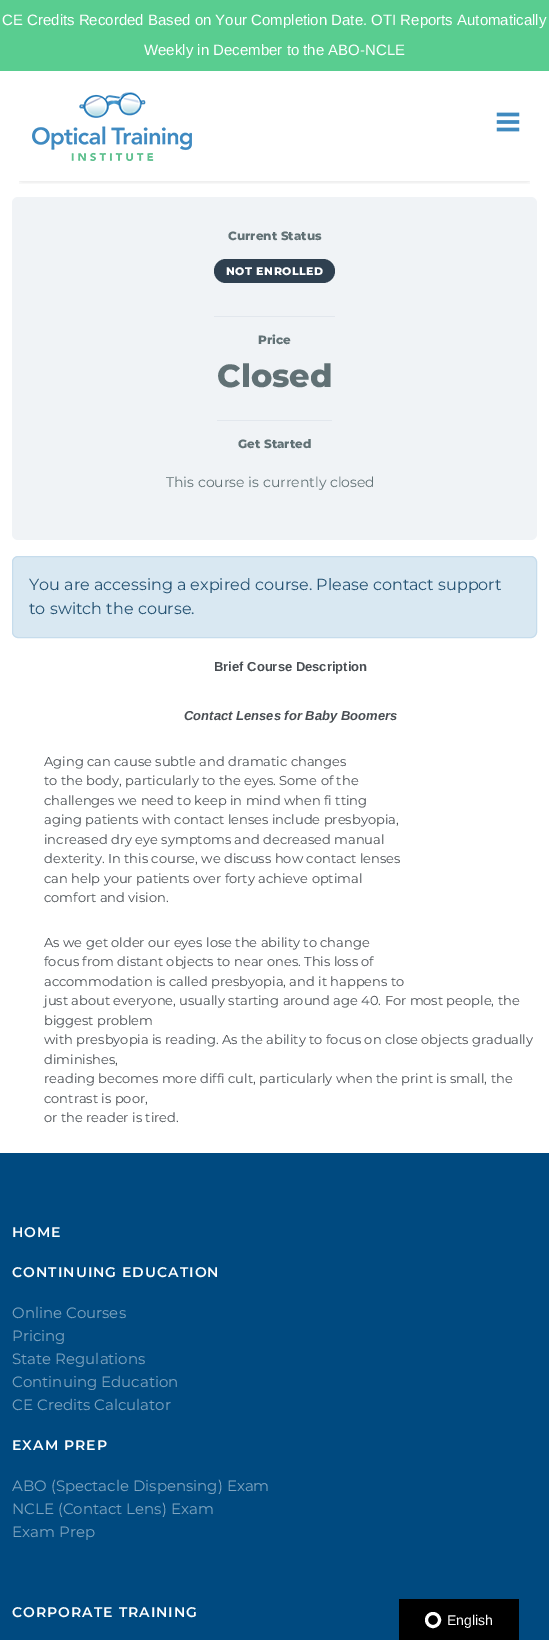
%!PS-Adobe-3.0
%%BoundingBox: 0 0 549 1640
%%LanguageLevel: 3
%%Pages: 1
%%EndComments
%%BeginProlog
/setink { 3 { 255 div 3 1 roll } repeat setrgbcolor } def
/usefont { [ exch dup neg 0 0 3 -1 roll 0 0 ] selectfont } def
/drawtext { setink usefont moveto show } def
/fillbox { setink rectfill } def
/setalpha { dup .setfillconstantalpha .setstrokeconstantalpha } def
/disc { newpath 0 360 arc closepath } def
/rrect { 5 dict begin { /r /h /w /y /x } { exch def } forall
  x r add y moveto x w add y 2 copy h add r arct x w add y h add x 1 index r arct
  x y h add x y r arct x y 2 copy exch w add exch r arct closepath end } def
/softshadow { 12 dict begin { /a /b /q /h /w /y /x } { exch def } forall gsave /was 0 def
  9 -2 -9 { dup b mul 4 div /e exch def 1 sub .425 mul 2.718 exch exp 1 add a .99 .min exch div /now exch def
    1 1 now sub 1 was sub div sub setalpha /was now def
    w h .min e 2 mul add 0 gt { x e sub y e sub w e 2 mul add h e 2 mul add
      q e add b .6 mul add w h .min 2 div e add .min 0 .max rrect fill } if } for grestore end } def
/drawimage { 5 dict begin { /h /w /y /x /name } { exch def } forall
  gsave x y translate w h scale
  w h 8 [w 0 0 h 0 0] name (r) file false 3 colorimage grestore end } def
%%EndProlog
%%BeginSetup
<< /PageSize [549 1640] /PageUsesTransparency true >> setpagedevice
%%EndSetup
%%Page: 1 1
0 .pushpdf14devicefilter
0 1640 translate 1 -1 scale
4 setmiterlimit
0 0 549 1640 255 255 255 fillbox
0 0 549 71 89 205 144 fillbox
(CE Credits Recorded Based on Your Completion Date. OTI Reports Automatically) 2 25 /LiberationSans-Regular 15 255 255 255 drawtext
(Weekly in December to the ABO-NCLE) 144 55 /LiberationSans-Regular 15 255 255 255 drawtext
gsave
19 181 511 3 rectclip
17 17 17 setink
22 108 505 66 0 5 1 softshadow
grestore
(assets/img1.rgb) 32 92 160 69 drawimage
(assets/img2.rgb) 496 112 24 20 drawimage
240 243 246 setink
12 197 525 343 6 rrect fill
214 316 121 1 226 231 237 fillbox
(Current Status) 228 240 /Montserrat-ExtraBold 12 97 113 117 drawtext
47 64 80 setink
214 259 121 24 12 rrect fill
/Montserrat-ExtraBold 11 usefont
255 255 255 setink
226 275 moveto 0.5 0 (NOT ENROLLED) ashow
217 420 115 1 226 231 237 fillbox
(Price) 258 344 /Montserrat-ExtraBold 12 97 113 117 drawtext
(Closed) 217 387 /Montserrat-ExtraBold 32 97 113 117 drawtext
(Get Started) 238 448 /Montserrat-ExtraBold 12 97 113 117 drawtext
(This course is currently closed) 166 487 /Montserrat-Regular 14 97 113 117 drawtext
217 232 242 setink
12.5 556.5 524 81 5.5 rrect gsave fill grestore
198 220 236 setink
stroke
(You are accessing a expired course. Please contact support) 29 590 /Montserrat-Regular 16 38 83 115 drawtext
(to switch the course.) 29 614 /Montserrat-Regular 16 38 83 115 drawtext
(Brief Course Description) 214 671 /LiberationSans-Bold 13 72 77 82 drawtext
(Contact Lenses for Baby Boomers) 184 720 /LiberationSans-BoldItalic 13 72 77 82 drawtext
(Aging can cause subtle and dramatic changes) 44 766 /Montserrat-Regular 13 72 77 82 drawtext
(to the body, particularly to the eyes. Some of the) 44 785 /Montserrat-Regular 13 72 77 82 drawtext
(challenges we need to keep in mind when fi tting) 44 805 /Montserrat-Regular 13 72 77 82 drawtext
(aging patients with contact lenses include presbyopia,) 44 824 /Montserrat-Regular 13 72 77 82 drawtext
(increased dry eye symptoms and decreased manual) 44 844 /Montserrat-Regular 13 72 77 82 drawtext
(dexterity. In this course, we discuss how contact lenses) 44 863 /Montserrat-Regular 13 72 77 82 drawtext
(can help your patients over forty achieve optimal) 44 883 /Montserrat-Regular 13 72 77 82 drawtext
(comfort and vision.) 44 902 /Montserrat-Regular 13 72 77 82 drawtext
(As we get older our eyes lose the ability to change) 44 947 /Montserrat-Regular 13 72 77 82 drawtext
(focus from distant objects to near ones. This loss of) 44 966 /Montserrat-Regular 13 72 77 82 drawtext
(accommodation is called presbyopia, and it happens to) 44 986 /Montserrat-Regular 13 72 77 82 drawtext
(just about everyone, usually starting around age 40. For most people, the) 44 1005 /Montserrat-Regular 13 72 77 82 drawtext
(biggest problem) 44 1025 /Montserrat-Regular 13 72 77 82 drawtext
(with presbyopia is reading. As the ability to focus on close objects gradually) 44 1044 /Montserrat-Regular 13 72 77 82 drawtext
(diminishes,) 44 1064 /Montserrat-Regular 13 72 77 82 drawtext
(reading becomes more diffi cult, particularly when the print is small, the) 44 1083 /Montserrat-Regular 13 72 77 82 drawtext
(contrast is poor,) 44 1103 /Montserrat-Regular 13 72 77 82 drawtext
(or the reader is tired.) 44 1122 /Montserrat-Regular 13 72 77 82 drawtext
0 1153 549 487 0 74 128 fillbox
/Montserrat-SemiBold 14 usefont
255 255 255 setink
12 1237 moveto 1 0 (HOME) ashow
12 1277 moveto 1 0 (CONTINUING EDUCATION) ashow
(Online Courses) 12 1318 /Montserrat-Regular 15 128 165 192 drawtext
(Pricing) 12 1341 /Montserrat-Regular 15 128 165 192 drawtext
(State Regulations) 12 1364 /Montserrat-Regular 15 128 165 192 drawtext
(Continuing Education) 12 1387 /Montserrat-Regular 15 128 165 192 drawtext
(CE Credits Calculator) 12 1410 /Montserrat-Regular 15 128 165 192 drawtext
/Montserrat-SemiBold 14 usefont
255 255 255 setink
12 1450 moveto 1 0 (EXAM PREP) ashow
(ABO \(Spectacle Dispensing\) Exam) 12 1491 /Montserrat-Regular 15 128 165 192 drawtext
(NCLE \(Contact Lens\) Exam) 12 1514 /Montserrat-Regular 15 128 165 192 drawtext
(Exam Prep) 12 1537 /Montserrat-Regular 15 128 165 192 drawtext
/Montserrat-SemiBold 14 usefont
255 255 255 setink
12 1617 moveto 1 0 (CORPORATE TRAINING) ashow
399 1599 120 41 0 0 0 fillbox
255 255 255 setink
3 setlinewidth
433 1620 6.5 disc stroke
(English) 447 1625 /LiberationSans-Regular 14 255 255 255 drawtext
.poppdf14devicefilter showpage
%%EOF
